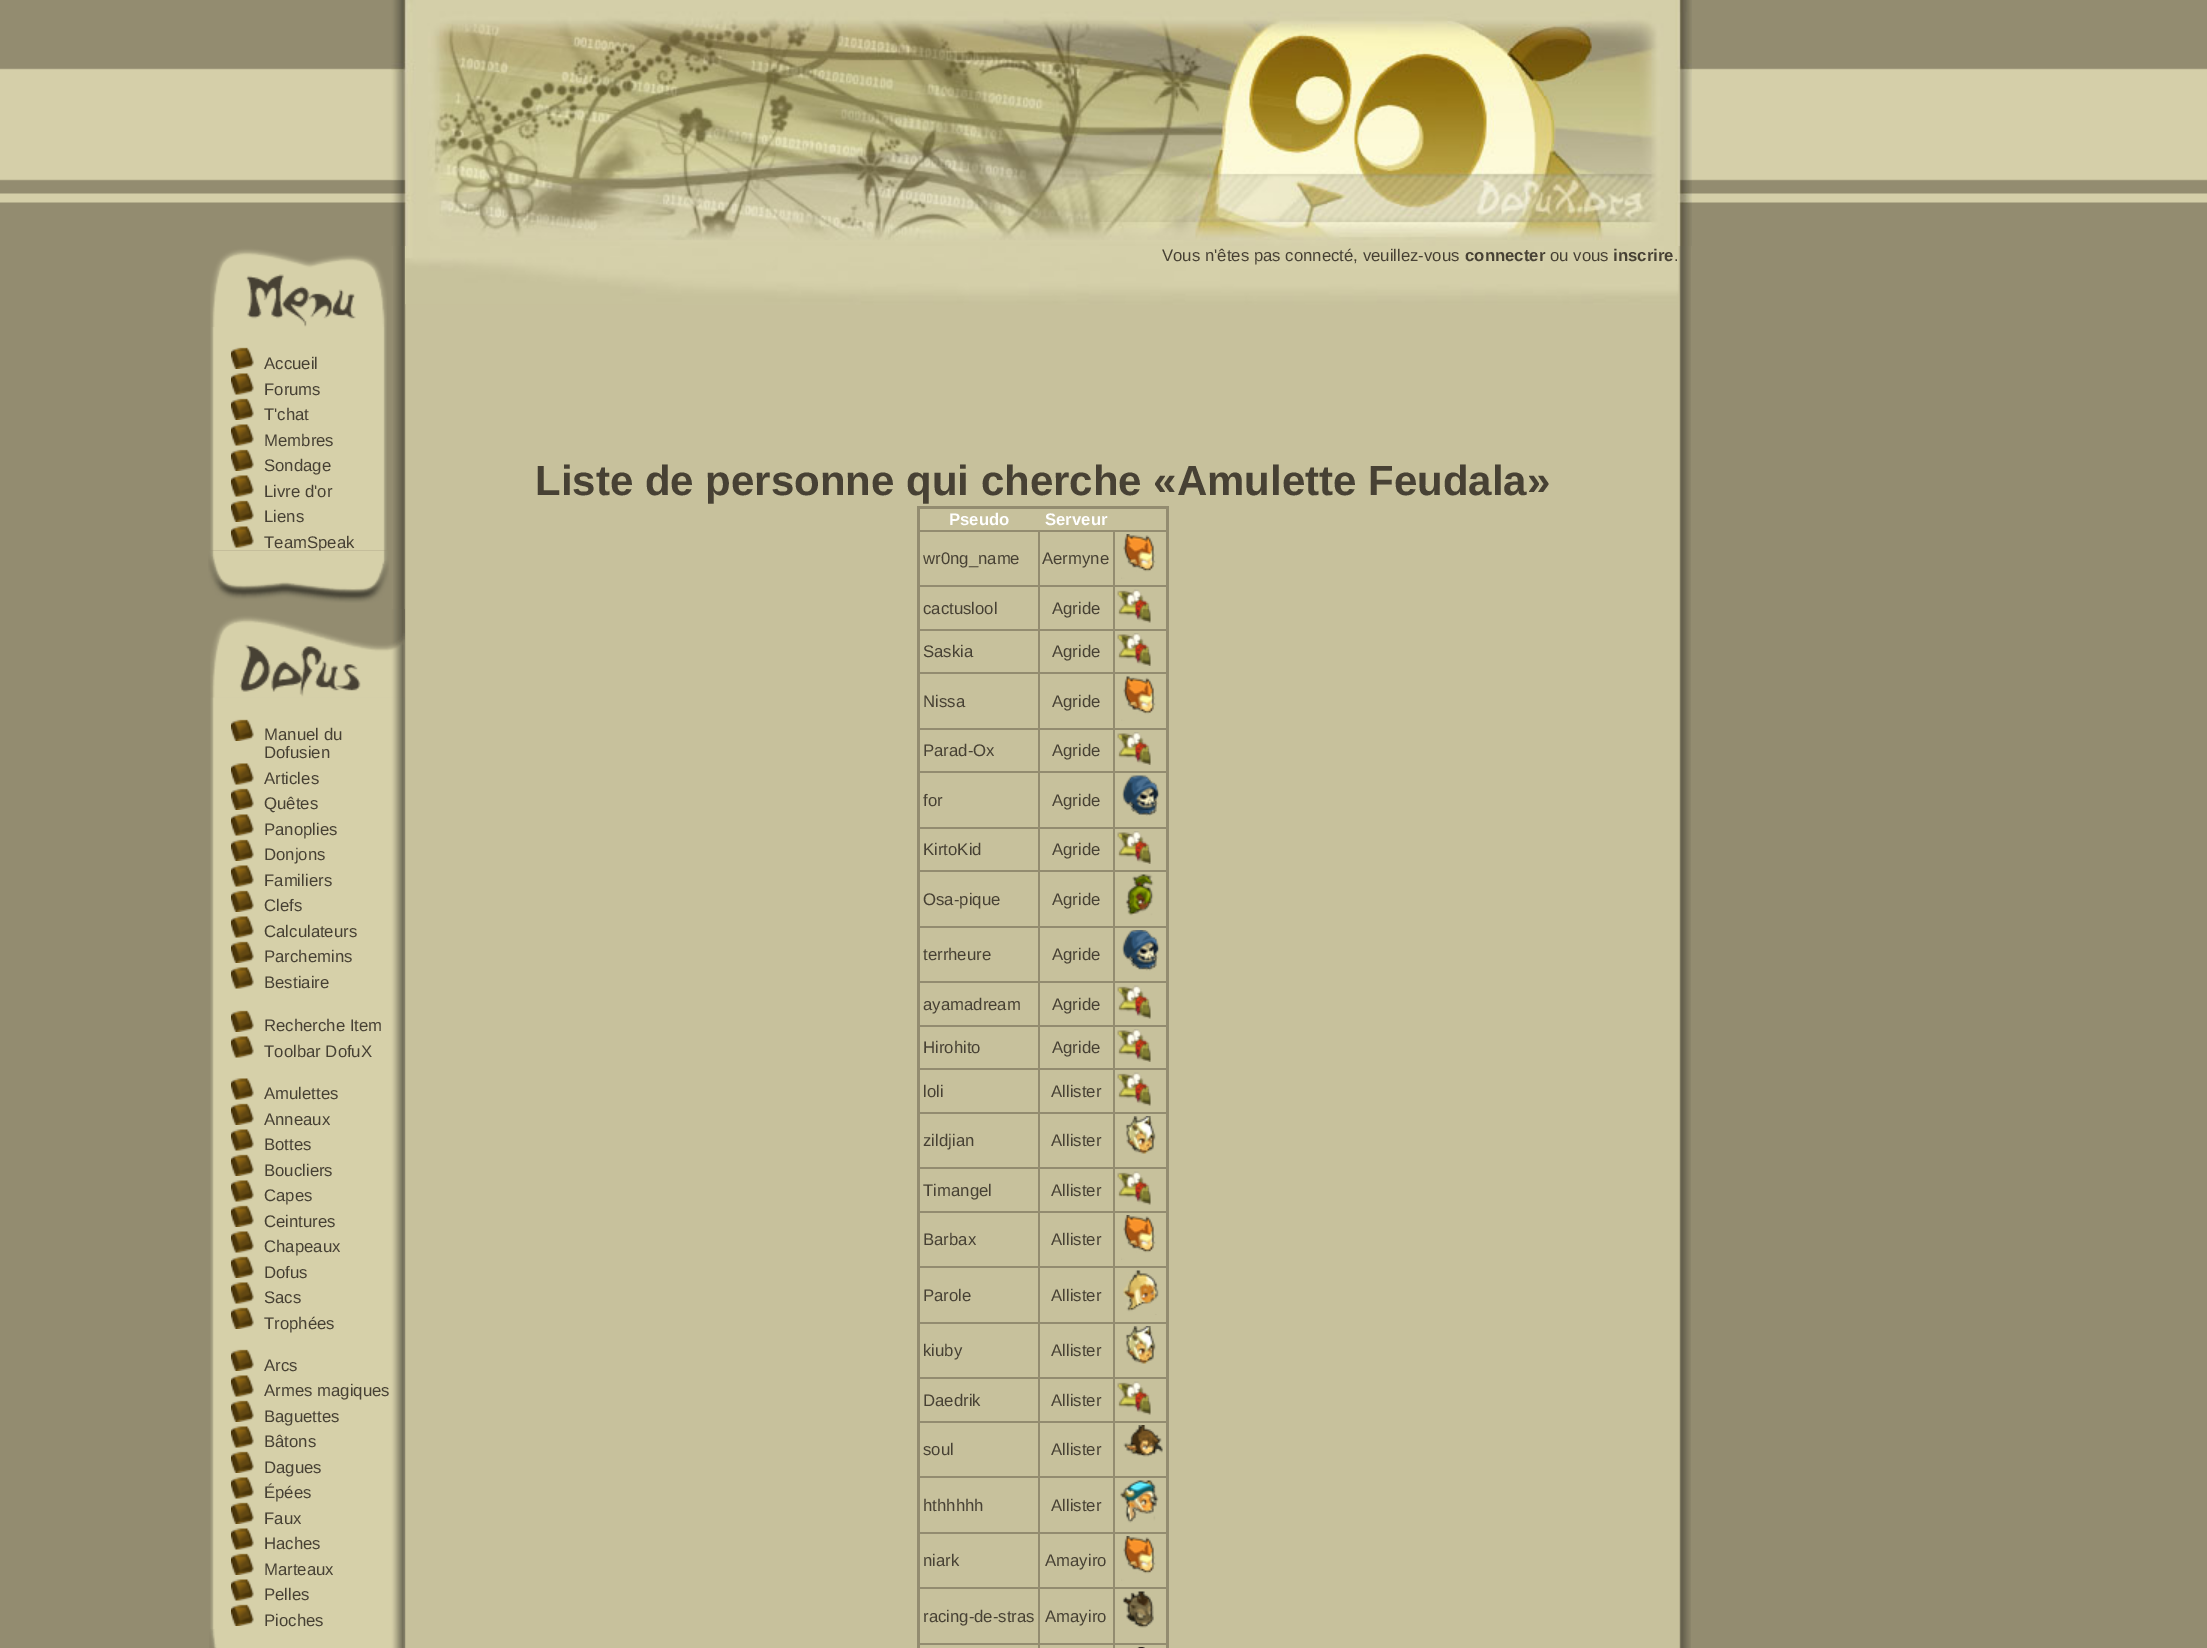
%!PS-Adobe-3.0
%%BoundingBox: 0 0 2207 1648
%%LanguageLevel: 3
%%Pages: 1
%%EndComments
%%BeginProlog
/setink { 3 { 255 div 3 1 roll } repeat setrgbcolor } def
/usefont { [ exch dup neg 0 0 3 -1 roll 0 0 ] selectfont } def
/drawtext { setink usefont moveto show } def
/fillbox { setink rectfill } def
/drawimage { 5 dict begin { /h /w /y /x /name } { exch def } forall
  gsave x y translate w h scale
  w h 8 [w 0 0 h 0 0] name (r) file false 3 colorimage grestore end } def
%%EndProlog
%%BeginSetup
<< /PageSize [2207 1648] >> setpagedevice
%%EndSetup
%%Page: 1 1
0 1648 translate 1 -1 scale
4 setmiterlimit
0 0 2207 1648 147 140 112 fillbox
(assets/img1.rgb) 0 68 2207 135 drawimage
(assets/img2.rgb) 391 0 1301 246 drawimage
(assets/img3.rgb) 210 327 177 224 drawimage
(assets/img4.rgb) 210 246 177 81 drawimage
(assets/img5.rgb) 231 347 23 22 drawimage
(Accueil) 264 369 /LiberationSans-Regular 16.75 71 65 52 drawtext
(assets/img6.rgb) 231 373 23 22 drawimage
(Forums) 264 395 /LiberationSans-Regular 16.75 71 65 52 drawtext
(assets/img5.rgb) 231 398 23 22 drawimage
(T'chat) 264 420 /LiberationSans-Regular 16.75 71 65 52 drawtext
(assets/img6.rgb) 231 424 23 22 drawimage
(Membres) 264 446 /LiberationSans-Regular 16.75 71 65 52 drawtext
(assets/img5.rgb) 231 449 23 22 drawimage
(Sondage) 264 471 /LiberationSans-Regular 16.75 71 65 52 drawtext
(assets/img6.rgb) 231 475 23 22 drawimage
(Livre d'or) 264 497 /LiberationSans-Regular 16.75 71 65 52 drawtext
(assets/img5.rgb) 231 500 23 22 drawimage
(Liens) 264 522 /LiberationSans-Regular 16.75 71 65 52 drawtext
(assets/img6.rgb) 231 526 23 22 drawimage
(TeamSpeak) 264 548 /LiberationSans-Regular 16.75 71 65 52 drawtext
(assets/img7.rgb) 208 550 181 53 drawimage
(assets/img11.rgb) 393 246 1298 1402 drawimage
(assets/img8.rgb) 210 697 195 932 drawimage
(assets/img9.rgb) 210 609 195 89 drawimage
(assets/img5.rgb) 231 719 23 22 drawimage
(Manuel du) 264 740 /LiberationSans-Regular 16.75 71 65 52 drawtext
(Dofusien) 264 758 /LiberationSans-Regular 16.75 71 65 52 drawtext
(assets/img6.rgb) 231 763 23 22 drawimage
(Articles) 264 784 /LiberationSans-Regular 16.75 71 65 52 drawtext
(assets/img5.rgb) 231 788 23 22 drawimage
(Quêtes) 264 809 /LiberationSans-Regular 16.75 71 65 52 drawtext
(assets/img6.rgb) 231 814 23 22 drawimage
(Panoplies) 264 835 /LiberationSans-Regular 16.75 71 65 52 drawtext
(assets/img5.rgb) 231 839 23 22 drawimage
(Donjons) 264 860 /LiberationSans-Regular 16.75 71 65 52 drawtext
(assets/img6.rgb) 231 865 23 22 drawimage
(Familiers) 264 886 /LiberationSans-Regular 16.75 71 65 52 drawtext
(assets/img5.rgb) 231 890 23 22 drawimage
(Clefs) 264 911 /LiberationSans-Regular 16.75 71 65 52 drawtext
(assets/img6.rgb) 231 916 23 22 drawimage
(Calculateurs) 264 937 /LiberationSans-Regular 16.75 71 65 52 drawtext
(assets/img5.rgb) 231 941 23 22 drawimage
(Parchemins) 264 962 /LiberationSans-Regular 16.75 71 65 52 drawtext
(assets/img6.rgb) 231 967 23 22 drawimage
(Bestiaire) 264 988 /LiberationSans-Regular 16.75 71 65 52 drawtext
(assets/img5.rgb) 231 1010 23 22 drawimage
(Recherche Item) 264 1031 /LiberationSans-Regular 16.75 71 65 52 drawtext
(assets/img6.rgb) 231 1036 23 22 drawimage
(Toolbar DofuX) 264 1057 /LiberationSans-Regular 16.75 71 65 52 drawtext
(assets/img6.rgb) 231 1078 23 22 drawimage
(Amulettes) 264 1099 /LiberationSans-Regular 16.75 71 65 52 drawtext
(assets/img5.rgb) 231 1103 23 22 drawimage
(Anneaux) 264 1125 /LiberationSans-Regular 16.75 71 65 52 drawtext
(assets/img6.rgb) 231 1129 23 22 drawimage
(Bottes) 264 1150 /LiberationSans-Regular 16.75 71 65 52 drawtext
(assets/img5.rgb) 231 1154 23 22 drawimage
(Boucliers) 264 1176 /LiberationSans-Regular 16.75 71 65 52 drawtext
(assets/img6.rgb) 231 1180 23 22 drawimage
(Capes) 264 1201 /LiberationSans-Regular 16.75 71 65 52 drawtext
(assets/img5.rgb) 231 1205 23 22 drawimage
(Ceintures) 264 1227 /LiberationSans-Regular 16.75 71 65 52 drawtext
(assets/img6.rgb) 231 1231 23 22 drawimage
(Chapeaux) 264 1252 /LiberationSans-Regular 16.75 71 65 52 drawtext
(assets/img5.rgb) 231 1256 23 22 drawimage
(Dofus) 264 1278 /LiberationSans-Regular 16.75 71 65 52 drawtext
(assets/img6.rgb) 231 1282 23 22 drawimage
(Sacs) 264 1303 /LiberationSans-Regular 16.75 71 65 52 drawtext
(assets/img5.rgb) 231 1307 23 22 drawimage
(Trophées) 264 1329 /LiberationSans-Regular 16.75 71 65 52 drawtext
(assets/img5.rgb) 231 1349 23 22 drawimage
(Arcs) 264 1371 /LiberationSans-Regular 16.75 71 65 52 drawtext
(assets/img6.rgb) 231 1375 23 22 drawimage
(Armes magiques) 264 1396 /LiberationSans-Regular 16.75 71 65 52 drawtext
(assets/img5.rgb) 231 1400 23 22 drawimage
(Baguettes) 264 1422 /LiberationSans-Regular 16.75 71 65 52 drawtext
(assets/img6.rgb) 231 1426 23 22 drawimage
(Bâtons) 264 1447 /LiberationSans-Regular 16.75 71 65 52 drawtext
(assets/img5.rgb) 231 1451 23 22 drawimage
(Dagues) 264 1473 /LiberationSans-Regular 16.75 71 65 52 drawtext
(assets/img6.rgb) 231 1477 23 22 drawimage
(Épées) 264 1498 /LiberationSans-Regular 16.75 71 65 52 drawtext
(assets/img5.rgb) 231 1502 23 22 drawimage
(Faux) 264 1524 /LiberationSans-Regular 16.75 71 65 52 drawtext
(assets/img6.rgb) 231 1528 23 22 drawimage
(Haches) 264 1549 /LiberationSans-Regular 16.75 71 65 52 drawtext
(assets/img5.rgb) 231 1553 23 22 drawimage
(Marteaux) 264 1575 /LiberationSans-Regular 16.75 71 65 52 drawtext
(assets/img6.rgb) 231 1579 23 22 drawimage
(Pelles) 264 1600 /LiberationSans-Regular 16.75 71 65 52 drawtext
(assets/img5.rgb) 231 1604 23 22 drawimage
(Pioches) 264 1626 /LiberationSans-Regular 16.75 71 65 52 drawtext
(assets/img10.rgb) 209 1629 196 19 drawimage
(assets/img12.rgb) 405 246 1274 59 drawimage
(Vous n'êtes pas connecté, veuillez-vous) 1162 261 /LiberationSans-Regular 16.75 71 65 52 drawtext
(connecter) 1465 261 /LiberationSans-Bold 16.75 71 65 52 drawtext
(ou vous) 1550 261 /LiberationSans-Regular 16.75 71 65 52 drawtext
(inscrire) 1613 261 /LiberationSans-Bold 16.75 71 65 52 drawtext
(.) 1674 261 /LiberationSans-Regular 16.75 71 65 52 drawtext
405 304 1 1 187 181 146 fillbox
(Liste de personne qui cherche «Amulette Feudala») 535 495 /LiberationSans-Bold 42 71 65 52 drawtext
917 506 252 3 147 140 112 fillbox
1113 530 54 2 147 140 112 fillbox
1113 585 54 2 147 140 112 fillbox
1113 629 54 2 147 140 112 fillbox
1113 672 54 2 147 140 112 fillbox
1113 728 54 2 147 140 112 fillbox
1113 771 54 2 147 140 112 fillbox
1113 827 54 2 147 140 112 fillbox
1113 870 54 2 147 140 112 fillbox
1113 926 54 2 147 140 112 fillbox
1113 981 54 2 147 140 112 fillbox
1113 1025 54 2 147 140 112 fillbox
1113 1068 54 2 147 140 112 fillbox
1113 1112 54 2 147 140 112 fillbox
1113 1167 54 2 147 140 112 fillbox
1113 1211 54 2 147 140 112 fillbox
1113 1266 54 2 147 140 112 fillbox
1113 1322 54 2 147 140 112 fillbox
1113 1377 54 2 147 140 112 fillbox
1113 1421 54 2 147 140 112 fillbox
1113 1476 54 2 147 140 112 fillbox
1113 1532 54 2 147 140 112 fillbox
1113 1587 54 2 147 140 112 fillbox
1113 1643 54 2 147 140 112 fillbox
1166 506 3 1142 147 140 112 fillbox
1113 1643 2 5 147 140 112 fillbox
1038 1643 77 2 147 140 112 fillbox
1113 1587 2 57 147 140 112 fillbox
1038 1587 77 2 147 140 112 fillbox
1113 1532 2 57 147 140 112 fillbox
1038 1532 77 2 147 140 112 fillbox
1113 1476 2 57 147 140 112 fillbox
1038 1476 77 2 147 140 112 fillbox
1113 1421 2 57 147 140 112 fillbox
1038 1421 77 2 147 140 112 fillbox
1113 1377 2 45 147 140 112 fillbox
1038 1377 77 2 147 140 112 fillbox
1113 1322 2 57 147 140 112 fillbox
1038 1322 77 2 147 140 112 fillbox
1113 1266 2 57 147 140 112 fillbox
1038 1266 77 2 147 140 112 fillbox
1113 1211 2 57 147 140 112 fillbox
1038 1211 77 2 147 140 112 fillbox
1113 1167 2 45 147 140 112 fillbox
1038 1167 77 2 147 140 112 fillbox
1113 1112 2 57 147 140 112 fillbox
1038 1112 77 2 147 140 112 fillbox
1113 1068 2 45 147 140 112 fillbox
1038 1068 77 2 147 140 112 fillbox
1113 1025 2 45 147 140 112 fillbox
1038 1025 77 2 147 140 112 fillbox
1113 981 2 45 147 140 112 fillbox
1038 981 77 2 147 140 112 fillbox
1113 926 2 57 147 140 112 fillbox
1038 926 77 2 147 140 112 fillbox
1113 870 2 57 147 140 112 fillbox
1038 870 77 2 147 140 112 fillbox
1113 827 2 45 147 140 112 fillbox
1038 827 77 2 147 140 112 fillbox
1113 771 2 57 147 140 112 fillbox
1038 771 77 2 147 140 112 fillbox
1113 728 2 45 147 140 112 fillbox
1038 728 77 2 147 140 112 fillbox
1113 672 2 57 147 140 112 fillbox
1038 672 77 2 147 140 112 fillbox
1113 629 2 45 147 140 112 fillbox
1038 629 77 2 147 140 112 fillbox
1113 585 2 45 147 140 112 fillbox
1038 585 77 2 147 140 112 fillbox
1113 530 2 57 147 140 112 fillbox
1038 530 77 2 147 140 112 fillbox
1038 1643 2 5 147 140 112 fillbox
918 1643 122 2 147 140 112 fillbox
1038 1587 2 57 147 140 112 fillbox
918 1587 122 2 147 140 112 fillbox
1038 1532 2 57 147 140 112 fillbox
918 1532 122 2 147 140 112 fillbox
1038 1476 2 57 147 140 112 fillbox
918 1476 122 2 147 140 112 fillbox
1038 1421 2 57 147 140 112 fillbox
918 1421 122 2 147 140 112 fillbox
1038 1377 2 45 147 140 112 fillbox
918 1377 122 2 147 140 112 fillbox
1038 1322 2 57 147 140 112 fillbox
918 1322 122 2 147 140 112 fillbox
1038 1266 2 57 147 140 112 fillbox
918 1266 122 2 147 140 112 fillbox
1038 1211 2 57 147 140 112 fillbox
918 1211 122 2 147 140 112 fillbox
1038 1167 2 45 147 140 112 fillbox
918 1167 122 2 147 140 112 fillbox
1038 1112 2 57 147 140 112 fillbox
918 1112 122 2 147 140 112 fillbox
1038 1068 2 45 147 140 112 fillbox
918 1068 122 2 147 140 112 fillbox
1038 1025 2 45 147 140 112 fillbox
918 1025 122 2 147 140 112 fillbox
1038 981 2 45 147 140 112 fillbox
918 981 122 2 147 140 112 fillbox
1038 926 2 57 147 140 112 fillbox
918 926 122 2 147 140 112 fillbox
1038 870 2 57 147 140 112 fillbox
918 870 122 2 147 140 112 fillbox
1038 827 2 45 147 140 112 fillbox
918 827 122 2 147 140 112 fillbox
1038 771 2 57 147 140 112 fillbox
918 771 122 2 147 140 112 fillbox
1038 728 2 45 147 140 112 fillbox
918 728 122 2 147 140 112 fillbox
1038 672 2 57 147 140 112 fillbox
918 672 122 2 147 140 112 fillbox
1038 629 2 45 147 140 112 fillbox
918 629 122 2 147 140 112 fillbox
1038 585 2 45 147 140 112 fillbox
918 585 122 2 147 140 112 fillbox
1038 530 2 57 147 140 112 fillbox
918 530 122 2 147 140 112 fillbox
917 506 3 1142 147 140 112 fillbox
(Pseudo) 949 525 /LiberationSans-Bold 16.75 255 255 255 drawtext
(Serveur) 1045 525 /LiberationSans-Bold 16.75 255 255 255 drawtext
(wr0ng_name) 923 564 /LiberationSans-Regular 16.75 71 65 52 drawtext
(Aermyne) 1042 564 /LiberationSans-Regular 16.75 71 65 52 drawtext
(assets/img13.rgb) 1121 534 35 45 drawimage
(cactuslool) 923 614 /LiberationSans-Regular 16.75 71 65 52 drawtext
(Agride) 1052 614 /LiberationSans-Regular 16.75 71 65 52 drawtext
(assets/img14.rgb) 1117 589 34 34 drawimage
(Saskia) 923 657 /LiberationSans-Regular 16.75 71 65 52 drawtext
(Agride) 1052 657 /LiberationSans-Regular 16.75 71 65 52 drawtext
(assets/img15.rgb) 1117 633 34 33 drawimage
(Nissa) 923 707 /LiberationSans-Regular 16.75 71 65 52 drawtext
(Agride) 1052 707 /LiberationSans-Regular 16.75 71 65 52 drawtext
(assets/img16.rgb) 1121 676 35 45 drawimage
(Parad-Ox) 923 756 /LiberationSans-Regular 16.75 71 65 52 drawtext
(Agride) 1052 756 /LiberationSans-Regular 16.75 71 65 52 drawtext
(assets/img15.rgb) 1117 732 34 33 drawimage
(for) 923 806 /LiberationSans-Regular 16.75 71 65 52 drawtext
(Agride) 1052 806 /LiberationSans-Regular 16.75 71 65 52 drawtext
(assets/img17.rgb) 1122 775 38 41 drawimage
(KirtoKid) 923 855 /LiberationSans-Regular 16.75 71 65 52 drawtext
(Agride) 1052 855 /LiberationSans-Regular 16.75 71 65 52 drawtext
(assets/img15.rgb) 1117 831 34 33 drawimage
(Osa-pique) 923 905 /LiberationSans-Regular 16.75 71 65 52 drawtext
(Agride) 1052 905 /LiberationSans-Regular 16.75 71 65 52 drawtext
(assets/img18.rgb) 1125 874 29 42 drawimage
(terrheure) 923 960 /LiberationSans-Regular 16.75 71 65 52 drawtext
(Agride) 1052 960 /LiberationSans-Regular 16.75 71 65 52 drawtext
(assets/img19.rgb) 1122 930 38 41 drawimage
(ayamadream) 923 1010 /LiberationSans-Regular 16.75 71 65 52 drawtext
(Agride) 1052 1010 /LiberationSans-Regular 16.75 71 65 52 drawtext
(assets/img14.rgb) 1117 985 34 34 drawimage
(Hirohito) 923 1053 /LiberationSans-Regular 16.75 71 65 52 drawtext
(Agride) 1052 1053 /LiberationSans-Regular 16.75 71 65 52 drawtext
(assets/img15.rgb) 1117 1029 34 33 drawimage
(loli) 923 1097 /LiberationSans-Regular 16.75 71 65 52 drawtext
(Allister) 1051 1097 /LiberationSans-Regular 16.75 71 65 52 drawtext
(assets/img14.rgb) 1117 1072 34 34 drawimage
(zildjian) 923 1146 /LiberationSans-Regular 16.75 71 65 52 drawtext
(Allister) 1051 1146 /LiberationSans-Regular 16.75 71 65 52 drawtext
(assets/img20.rgb) 1125 1116 31 38 drawimage
(Timangel) 923 1196 /LiberationSans-Regular 16.75 71 65 52 drawtext
(Allister) 1051 1196 /LiberationSans-Regular 16.75 71 65 52 drawtext
(assets/img14.rgb) 1117 1171 34 34 drawimage
(Barbax) 923 1245 /LiberationSans-Regular 16.75 71 65 52 drawtext
(Allister) 1051 1245 /LiberationSans-Regular 16.75 71 65 52 drawtext
(assets/img13.rgb) 1121 1215 35 45 drawimage
(Parole) 923 1301 /LiberationSans-Regular 16.75 71 65 52 drawtext
(Allister) 1051 1301 /LiberationSans-Regular 16.75 71 65 52 drawtext
(assets/img21.rgb) 1123 1270 36 45 drawimage
(kiuby) 923 1356 /LiberationSans-Regular 16.75 71 65 52 drawtext
(Allister) 1051 1356 /LiberationSans-Regular 16.75 71 65 52 drawtext
(assets/img20.rgb) 1125 1326 31 38 drawimage
(Daedrik) 923 1406 /LiberationSans-Regular 16.75 71 65 52 drawtext
(Allister) 1051 1406 /LiberationSans-Regular 16.75 71 65 52 drawtext
(assets/img14.rgb) 1117 1381 34 34 drawimage
(soul) 923 1455 /LiberationSans-Regular 16.75 71 65 52 drawtext
(Allister) 1051 1455 /LiberationSans-Regular 16.75 71 65 52 drawtext
(assets/img22.rgb) 1123 1425 40 32 drawimage
(hthhhhh) 923 1511 /LiberationSans-Regular 16.75 71 65 52 drawtext
(Allister) 1051 1511 /LiberationSans-Regular 16.75 71 65 52 drawtext
(assets/img23.rgb) 1120 1480 39 43 drawimage
(niark) 923 1566 /LiberationSans-Regular 16.75 71 65 52 drawtext
(Amayiro) 1045 1566 /LiberationSans-Regular 16.75 71 65 52 drawtext
(assets/img13.rgb) 1121 1536 35 45 drawimage
(racing-de-stras) 923 1622 /LiberationSans-Regular 16.75 71 65 52 drawtext
(Amayiro) 1045 1622 /LiberationSans-Regular 16.75 71 65 52 drawtext
(assets/img24.rgb) 1122 1591 32 37 drawimage
(assets/img25.rgb) 1137 1647 8 1 drawimage
showpage
%%EOF
